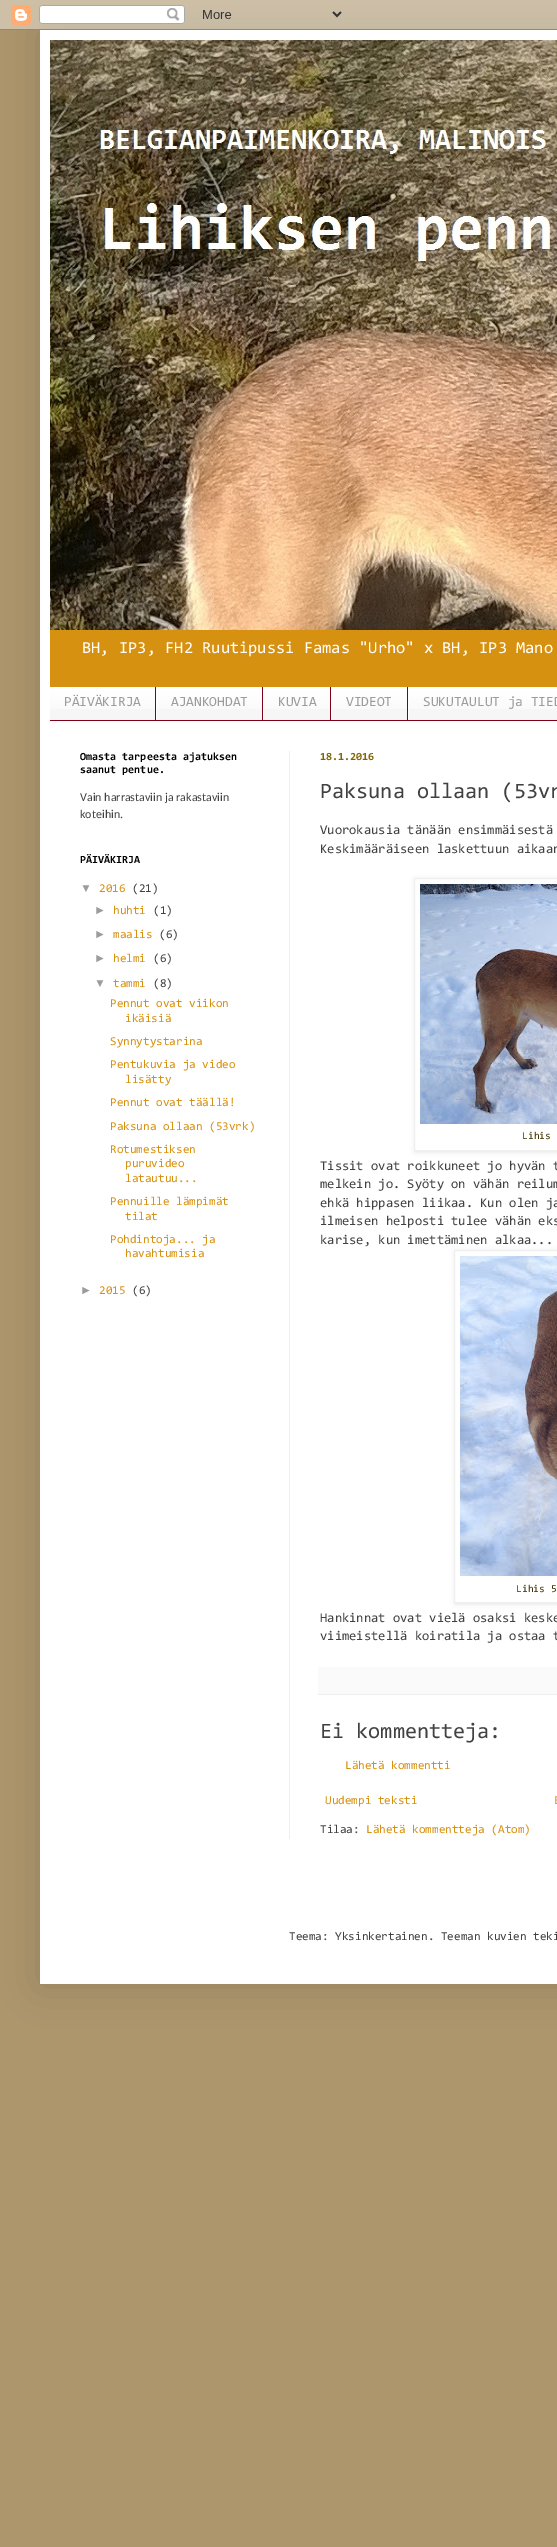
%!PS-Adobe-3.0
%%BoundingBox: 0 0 557 2547
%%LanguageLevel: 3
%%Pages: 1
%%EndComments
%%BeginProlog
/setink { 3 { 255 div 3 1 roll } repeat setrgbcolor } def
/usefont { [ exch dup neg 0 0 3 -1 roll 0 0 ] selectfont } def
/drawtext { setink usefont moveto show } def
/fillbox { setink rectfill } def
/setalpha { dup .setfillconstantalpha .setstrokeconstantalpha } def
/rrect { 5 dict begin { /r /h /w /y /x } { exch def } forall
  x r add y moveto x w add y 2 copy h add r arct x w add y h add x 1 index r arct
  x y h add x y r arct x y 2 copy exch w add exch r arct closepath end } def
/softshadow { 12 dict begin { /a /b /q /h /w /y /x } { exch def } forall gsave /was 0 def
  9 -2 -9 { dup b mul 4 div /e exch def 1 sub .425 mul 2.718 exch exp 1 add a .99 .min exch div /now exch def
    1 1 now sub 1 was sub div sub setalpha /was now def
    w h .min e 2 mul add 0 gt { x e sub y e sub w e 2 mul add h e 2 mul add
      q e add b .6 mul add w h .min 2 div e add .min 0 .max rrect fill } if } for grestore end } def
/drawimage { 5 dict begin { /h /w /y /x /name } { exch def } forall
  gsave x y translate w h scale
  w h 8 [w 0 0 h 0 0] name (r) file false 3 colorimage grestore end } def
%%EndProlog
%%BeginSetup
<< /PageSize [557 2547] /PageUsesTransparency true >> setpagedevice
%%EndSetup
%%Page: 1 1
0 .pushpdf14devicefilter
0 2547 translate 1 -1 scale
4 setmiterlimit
0 0 557 2547 173 150 108 fillbox
0 0 0 setink
40 30 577 1954 0 20 0.15 softshadow
(assets/img1.rgb) 0 0 557 30 drawimage
40 30 517 1954 255 255 255 fillbox
50 630 507 57 215 145 17 fillbox
(assets/img2.rgb) 50 40 507 590 drawimage
(BH, IP3, FH2 Ruutipussi Famas "Urho" x BH, IP3 Mano) 82 653 /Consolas-Regular 16.8 255 255 255 drawtext
50 688 507 32 246 246 246 fillbox
(assets/img3.rgb) 50 687 507 22 drawimage
50 720 507 1 127 0 26 fillbox
155 687 1 33 127 0 26 fillbox
(PÄIVÄKIRJA) 64 706 /Consolas-Regular 14 156 156 156 drawtext
262 687 1 33 127 0 26 fillbox
156 699 1 21 255 255 255 fillbox
(AJANKOHDAT) 171 706 /Consolas-Regular 14 156 156 156 drawtext
330 687 1 33 127 0 26 fillbox
263 699 1 21 255 255 255 fillbox
(KUVIA) 278 706 /Consolas-Regular 14 156 156 156 drawtext
407 687 1 33 127 0 26 fillbox
331 699 1 21 255 255 255 fillbox
(VIDEOT) 346 706 /Consolas-Regular 14 156 156 156 drawtext
408 699 1 21 255 255 255 fillbox
(SUKUTAULUT ja TIED) 423 706 /Consolas-Regular 14 156 156 156 drawtext
289 751 1 1088 239 239 239 fillbox
(Omasta tarpeesta ajatuksen) 80 760 /Consolas-Bold 11 0 0 0 drawtext
(saanut pentue.) 80 773 /Consolas-Bold 11 0 0 0 drawtext
(Vain harrastaviin ja rakastaviin) 80 801 /Carlito-Regular 12 65 65 65 drawtext
(koteihin.) 80 818 /Carlito-Regular 12 65 65 65 drawtext
(PÄIVÄKIRJA) 80 863 /Consolas-Bold 11 0 0 0 drawtext
(▼) 80 892 /LiberationSans-Regular 12 156 156 156 drawtext
(2016) 99 892 /Consolas-Regular 12 215 145 17 drawtext
(\(21\)) 132 892 /Consolas-Regular 12 65 65 65 drawtext
(►) 94 914 /LiberationSans-Regular 12 156 156 156 drawtext
(huhti) 113 914 /Consolas-Regular 12 215 145 17 drawtext
(\(1\)) 153 914 /Consolas-Regular 12 65 65 65 drawtext
(►) 94 938 /LiberationSans-Regular 12 156 156 156 drawtext
(maalis) 113 938 /Consolas-Regular 12 215 145 17 drawtext
(\(6\)) 159 938 /Consolas-Regular 12 65 65 65 drawtext
(►) 94 962 /LiberationSans-Regular 12 156 156 156 drawtext
(helmi) 113 962 /Consolas-Regular 12 215 145 17 drawtext
(\(6\)) 153 962 /Consolas-Regular 12 65 65 65 drawtext
(▼) 94 987 /LiberationSans-Regular 12 156 156 156 drawtext
(tammi) 113 987 /Consolas-Regular 12 215 145 17 drawtext
(\(8\)) 153 987 /Consolas-Regular 12 65 65 65 drawtext
(Pennut ovat viikon) 110 1007 /Consolas-Regular 12 215 145 17 drawtext
(ikäisiä) 125 1022 /Consolas-Regular 12 215 145 17 drawtext
(Synnytystarina) 110 1045 /Consolas-Regular 12 215 145 17 drawtext
(Pentukuvia ja video) 110 1068 /Consolas-Regular 12 215 145 17 drawtext
(lisätty) 125 1083 /Consolas-Regular 12 215 145 17 drawtext
(Pennut ovat täällä!) 110 1106 /Consolas-Regular 12 215 145 17 drawtext
(Paksuna ollaan \(53vrk\)) 110 1130 /Consolas-Regular 12 215 145 17 drawtext
(Rotumestiksen) 110 1153 /Consolas-Regular 12 215 145 17 drawtext
(puruvideo) 125 1167 /Consolas-Regular 12 215 145 17 drawtext
(latautuu...) 125 1182 /Consolas-Regular 12 215 145 17 drawtext
(Pennuille lämpimät) 110 1205 /Consolas-Regular 12 215 145 17 drawtext
(tilat) 125 1220 /Consolas-Regular 12 215 145 17 drawtext
(Pohdintoja... ja) 110 1243 /Consolas-Regular 12 215 145 17 drawtext
(havahtumisia) 125 1257 /Consolas-Regular 12 215 145 17 drawtext
(►) 80 1294 /LiberationSans-Regular 12 156 156 156 drawtext
(2015) 99 1294 /Consolas-Regular 12 215 145 17 drawtext
(\(6\)) 132 1294 /Consolas-Regular 12 65 65 65 drawtext
(18.1.2016) 320 760 /Consolas-Bold 11 127 101 4 drawtext
(Paksuna ollaan \(53vr) 320 798 /Consolas-Regular 22 65 65 65 drawtext
(Vuorokausia tänään ensimmäisestä) 320 834 /Consolas-Regular 13.25 65 65 65 drawtext
(Keskimääräiseen laskettuun aikaan) 320 853 /Consolas-Regular 13.25 65 65 65 drawtext
gsave
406 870 moveto 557 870 lineto 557 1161 lineto 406 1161 lineto closepath 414 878 moveto 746 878 lineto 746 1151 lineto 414 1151 lineto closepath eoclip newpath
0 0 0 setink
415 879 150 273 0 2.5 0.1 softshadow
grestore
239 239 239 setink
414.5 878.5 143 272 rectstroke
(assets/img4.rgb) 420 884 137 240 drawimage
(Lihis) 522 1139 /Consolas-Regular 10.5 63 50 2 drawtext
(Tissit ovat roikkuneet jo hyvän t) 320 1170 /Consolas-Regular 13.25 65 65 65 drawtext
(melkein jo. Syöty on vähän reilum) 320 1188 /Consolas-Regular 13.25 65 65 65 drawtext
(ehkä hippasen liikaa. Kun olen ja) 320 1207 /Consolas-Regular 13.25 65 65 65 drawtext
(ilmeisen helposti tulee vähän eks) 320 1225 /Consolas-Regular 13.25 65 65 65 drawtext
(karise, kun imettäminen alkaa...) 320 1244 /Consolas-Regular 13.25 65 65 65 drawtext
gsave
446 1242 moveto 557 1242 lineto 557 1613 lineto 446 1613 lineto closepath 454 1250 moveto 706 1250 lineto 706 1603 lineto 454 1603 lineto closepath eoclip newpath
0 0 0 setink
455 1251 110 353 0 2.5 0.1 softshadow
grestore
239 239 239 setink
454.5 1250.5 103 352 rectstroke
(assets/img5.rgb) 460 1256 97 320 drawimage
(Lihis 5) 516 1592 /Consolas-Regular 10.5 63 50 2 drawtext
(Hankinnat ovat vielä osaksi keske) 320 1622 /Consolas-Regular 13.25 65 65 65 drawtext
(viimeistellä koiratila ja ostaa t) 320 1640 /Consolas-Regular 13.25 65 65 65 drawtext
318 1667 239 27 250 250 250 fillbox
318 1694 239 1 239 239 239 fillbox
(Ei kommentteja:) 320 1738 /Consolas-Regular 22 65 65 65 drawtext
(Lähetä kommentti) 345 1769 /Consolas-Regular 12 215 145 17 drawtext
(Uudempi teksti) 325 1804 /Consolas-Regular 12 215 145 17 drawtext
(E) 554 1804 /Consolas-Regular 12 215 145 17 drawtext
(Tilaa:) 320 1833 /Consolas-Regular 12 65 65 65 drawtext
(Lähetä kommentteja \(Atom\)) 366 1833 /Consolas-Regular 12 215 145 17 drawtext
(Teema: Yksinkertainen. Teeman kuvien teki) 289 1940 /Consolas-Regular 12 65 65 65 drawtext
.poppdf14devicefilter showpage
%%EOF
